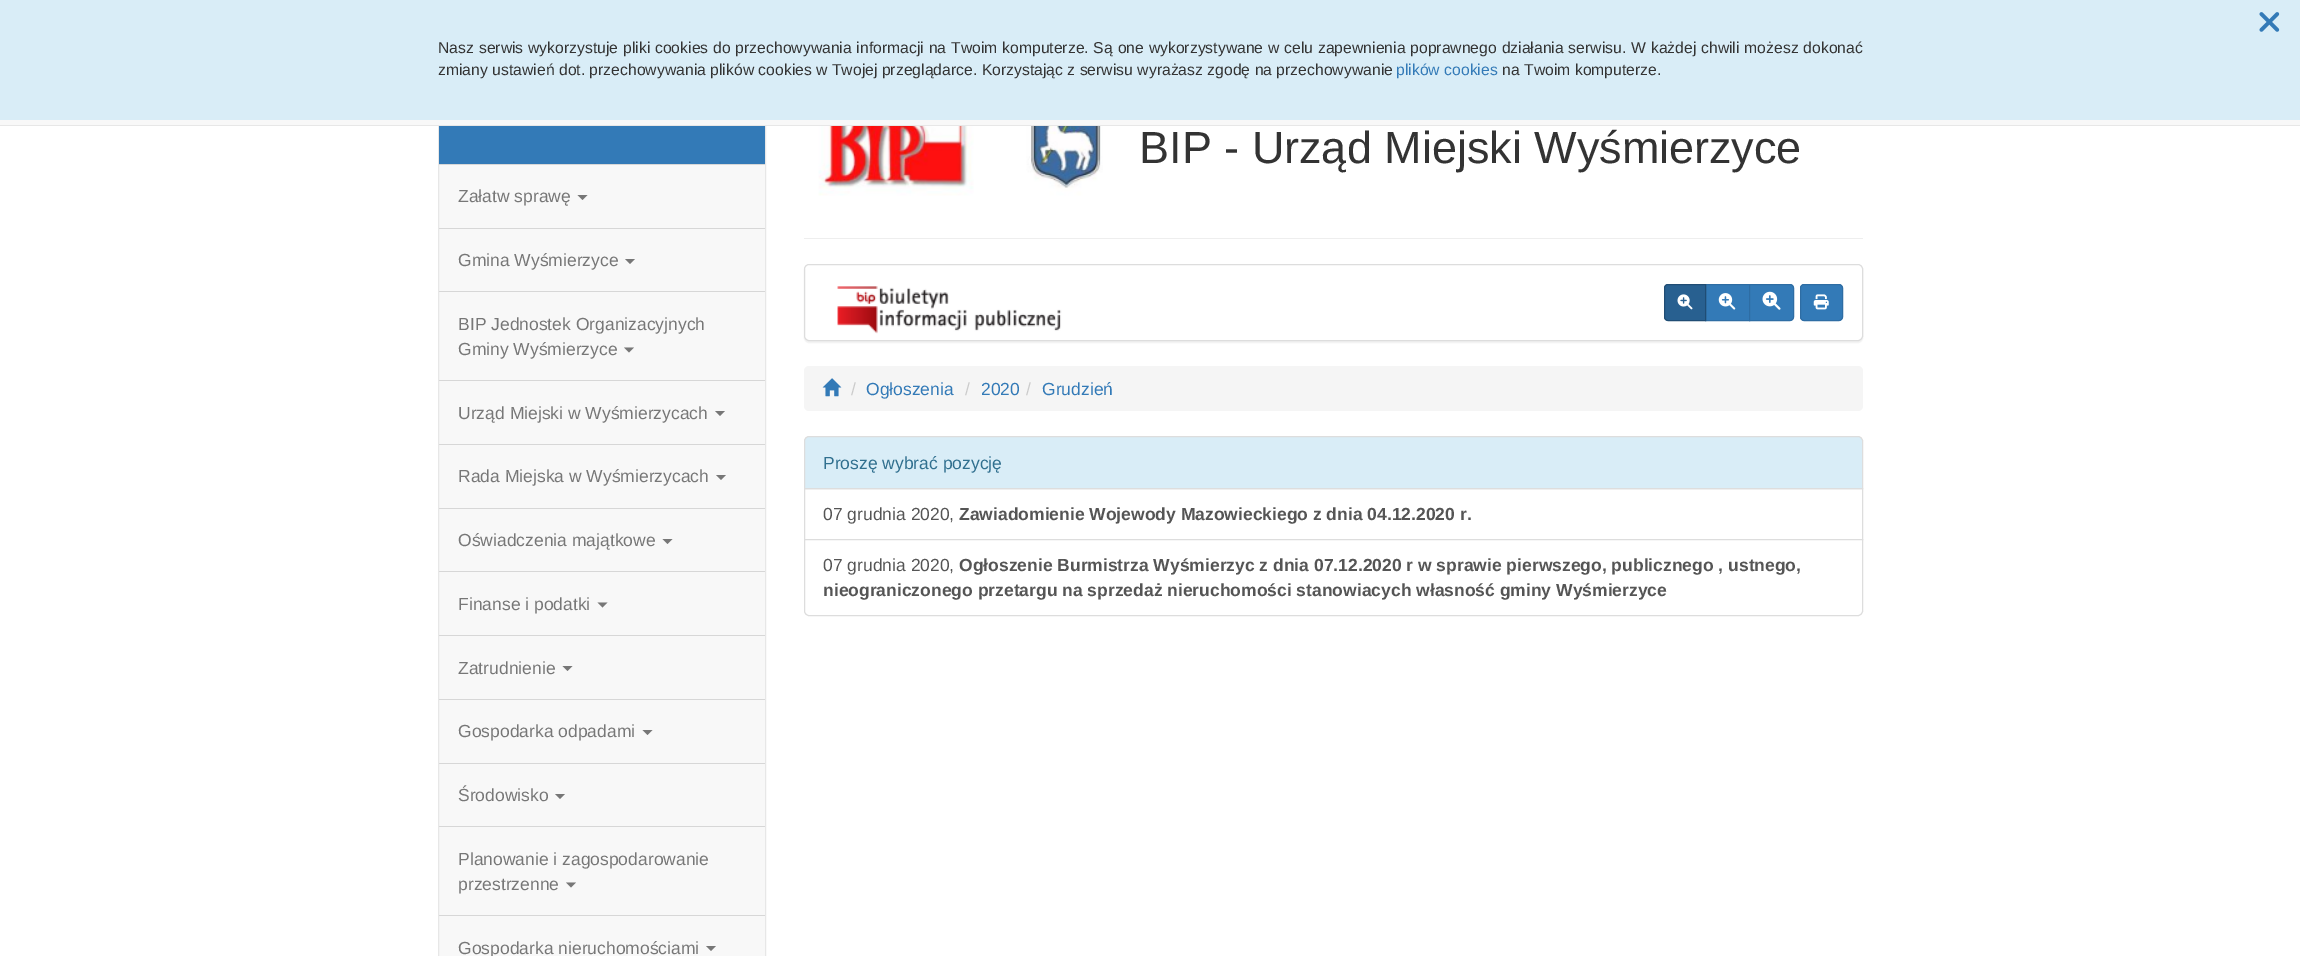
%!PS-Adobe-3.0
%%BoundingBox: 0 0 2300 956
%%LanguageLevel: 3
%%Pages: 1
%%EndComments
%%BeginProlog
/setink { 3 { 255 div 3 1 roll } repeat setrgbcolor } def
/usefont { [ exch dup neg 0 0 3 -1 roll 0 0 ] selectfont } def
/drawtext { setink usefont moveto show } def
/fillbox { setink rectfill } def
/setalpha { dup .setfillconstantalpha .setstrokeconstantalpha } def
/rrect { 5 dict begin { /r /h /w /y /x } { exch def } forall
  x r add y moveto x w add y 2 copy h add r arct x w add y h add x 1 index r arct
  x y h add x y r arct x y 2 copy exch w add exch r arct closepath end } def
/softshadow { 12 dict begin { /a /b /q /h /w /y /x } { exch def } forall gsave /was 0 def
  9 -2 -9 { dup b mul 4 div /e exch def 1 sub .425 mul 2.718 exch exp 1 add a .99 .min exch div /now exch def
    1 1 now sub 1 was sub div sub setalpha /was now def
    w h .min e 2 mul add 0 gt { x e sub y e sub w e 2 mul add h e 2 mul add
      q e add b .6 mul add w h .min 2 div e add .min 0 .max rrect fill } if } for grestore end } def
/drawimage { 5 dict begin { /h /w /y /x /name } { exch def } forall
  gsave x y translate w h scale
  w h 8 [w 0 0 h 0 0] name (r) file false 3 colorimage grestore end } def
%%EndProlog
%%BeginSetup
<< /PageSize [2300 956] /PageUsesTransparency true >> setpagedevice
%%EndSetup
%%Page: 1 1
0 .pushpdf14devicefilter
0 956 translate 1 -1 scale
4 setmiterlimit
0 0 2300 956 255 255 255 fillbox
439 165 326 791 248 248 248 fillbox
231 231 231 setink
438.5 88.5 327 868 rectstroke
0 0 2300 120 217 237 247 fillbox
(assets/img1.rgb) 2259 12 21 20 drawimage
/LiberationSans-Regular 15.75 usefont
51 51 51 setink
438 53 moveto 0.4 0 32 (Nasz serwis wykorzystuje pliki cookies do przechowywania informacji na Twoim komputerze. Są one wykorzystywane w celu zapewnienia poprawnego działania serwisu. W każdej chwili możesz dokonać) widthshow
(zmiany ustawień dot. przechowywania plików cookies w Twojej przeglądarce. Korzystając z serwisu wyrażasz zgodę na przechowywanie) 438 75 /LiberationSans-Regular 15.75 51 51 51 drawtext
(plików cookies) 1396 75 /LiberationSans-Regular 15.75 51 122 183 drawtext
(na Twoim komputerze.) 1502 75 /LiberationSans-Regular 15.75 51 51 51 drawtext
0 120 2300 5 248 248 248 fillbox
0 125 2300 1 231 231 231 fillbox
439 126 326 38 51 122 183 fillbox
439 164 326 1 215 215 215 fillbox
439 228 326 1 215 215 215 fillbox
(Załatw sprawę) 458 202 /LiberationSans-Regular 17.5 119 119 119 drawtext
577.5 195 moveto 587.5 195 lineto 582.5 200 lineto closepath fill
439 291 326 1 215 215 215 fillbox
(Gmina Wyśmierzyce) 458 266 /LiberationSans-Regular 17.5 119 119 119 drawtext
625 259 moveto 635 259 lineto 630 264 lineto closepath fill
439 380 326 1 215 215 215 fillbox
(BIP Jednostek Organizacyjnych) 458 330 /LiberationSans-Regular 17.5 119 119 119 drawtext
(Gminy Wyśmierzyce) 458 355 /LiberationSans-Regular 17.5 119 119 119 drawtext
624 347.5 moveto 634 347.5 lineto 629 352.5 lineto closepath fill
439 444 326 1 215 215 215 fillbox
(Urząd Miejski w Wyśmierzycach) 458 419 /LiberationSans-Regular 17.5 119 119 119 drawtext
715 411 moveto 725 411 lineto 720 416 lineto closepath fill
439 508 326 1 215 215 215 fillbox
(Rada Miejska w Wyśmierzycach) 458 482 /LiberationSans-Regular 17.5 119 119 119 drawtext
716 475 moveto 726 475 lineto 721 480 lineto closepath fill
439 571 326 1 215 215 215 fillbox
(Oświadczenia majątkowe) 458 546 /LiberationSans-Regular 17.5 119 119 119 drawtext
662.5 539 moveto 672.5 539 lineto 667.5 544 lineto closepath fill
439 635 326 1 215 215 215 fillbox
(Finanse i podatki) 458 610 /LiberationSans-Regular 17.5 119 119 119 drawtext
597.5 602.5 moveto 607.5 602.5 lineto 602.5 607.5 lineto closepath fill
439 699 326 1 215 215 215 fillbox
(Zatrudnienie) 458 674 /LiberationSans-Regular 17.5 119 119 119 drawtext
562.5 666 moveto 572.5 666 lineto 567.5 671 lineto closepath fill
439 763 326 1 215 215 215 fillbox
(Gospodarka odpadami) 458 737 /LiberationSans-Regular 17.5 119 119 119 drawtext
642.5 730 moveto 652.5 730 lineto 647.5 735 lineto closepath fill
439 826 326 1 215 215 215 fillbox
(Środowisko) 458 801 /LiberationSans-Regular 17.5 119 119 119 drawtext
555 794 moveto 565 794 lineto 560 799 lineto closepath fill
439 915 326 1 215 215 215 fillbox
(Planowanie i zagospodarowanie) 458 865 /LiberationSans-Regular 17.5 119 119 119 drawtext
(przestrzenne) 458 890 /LiberationSans-Regular 17.5 119 119 119 drawtext
566 882.5 moveto 576 882.5 lineto 571 887.5 lineto closepath fill
(Gospodarka nieruchomościami) 458 954 /LiberationSans-Regular 17.5 119 119 119 drawtext
706 946 moveto 716 946 lineto 711 951 lineto closepath fill
804 238 1059 1 238 238 238 fillbox
(assets/img2.rgb) 818 126 285 70 drawimage
(BIP - Urząd Miejski Wyśmierzyce) 1139 163 /LiberationSans-Regular 45 51 51 51 drawtext
0 0 0 setink
804 265 1059 78 5 0.5 0.05 softshadow
255 255 255 setink
804.5 264.5 1058 76 4.5 rrect gsave fill grestore
221 221 221 setink
stroke
(assets/img3.rgb) 837 286 225 48 drawimage
51 122 183 setink
1705.5 284.5 moveto 1749.5 284.5 lineto 1749.5 320.5 lineto 1705.5 320.5 lineto closepath gsave fill grestore
46 109 164 setink
stroke
40 96 144 setink
1668 284.5 moveto 1705.5 284.5 lineto 1705.5 320.5 lineto 1668 320.5 lineto 1666 320.5 1664.5 319 1664.5 317 curveto 1664.5 288 lineto 1664.5 286 1666 284.5 1668 284.5 curveto closepath gsave fill grestore
32 77 116 setink
stroke
(assets/img4.rgb) 1677 294 16 16 drawimage
(assets/img5.rgb) 1718 293 18 17 drawimage
51 122 183 setink
1749.5 284.5 moveto 1790 284.5 lineto 1792 284.5 1793.5 286 1793.5 288 curveto 1793.5 317 lineto 1793.5 319 1792 320.5 1790 320.5 curveto 1749.5 320.5 lineto closepath gsave fill grestore
46 109 164 setink
stroke
(assets/img6.rgb) 1762 291 19 19 drawimage
51 122 183 setink
1800.5 284.5 42 36 3.5 rrect gsave fill grestore
46 109 164 setink
stroke
(assets/img7.rgb) 1813 294 16 16 drawimage
245 245 245 setink
804 366 1059 45 5 rrect fill
(assets/img8.rgb) 822 378 20 19 drawimage
(/) 851 395 /LiberationSans-Regular 17.5 204 204 204 drawtext
(Ogłoszenia) 866 395 /LiberationSans-Regular 17.5 51 122 183 drawtext
(/) 965 395 /LiberationSans-Regular 17.5 204 204 204 drawtext
(2020) 981 395 /LiberationSans-Regular 17.5 51 122 183 drawtext
(/) 1026 395 /LiberationSans-Regular 17.5 204 204 204 drawtext
(Grudzień) 1042 395 /LiberationSans-Regular 17.5 51 122 183 drawtext
217 237 247 setink
809 436.5 moveto 1858 436.5 lineto 1860.5 436.5 1862.5 438.5 1862.5 441 curveto 1862.5 488.5 lineto 804.5 488.5 lineto 804.5 441 lineto 804.5 438.5 806.5 436.5 809 436.5 curveto closepath gsave fill grestore
221 221 221 setink
stroke
(Proszę wybrać pozycję) 823 469 /LiberationSans-Regular 17.5 49 112 143 drawtext
221 221 221 setink
804.5 488.5 1058 51 rectstroke
(07 grudnia 2020,) 823 520 /LiberationSans-Regular 17.5 85 85 85 drawtext
(Zawiadomienie Wojewody Mazowieckiego z dnia 04.12.2020 r.) 959 520 /LiberationSans-Bold 17.5 85 85 85 drawtext
255 255 255 setink
804.5 539.5 moveto 1862.5 539.5 lineto 1862.5 611 lineto 1862.5 613.5 1860.5 615.5 1858 615.5 curveto 809 615.5 lineto 806.5 615.5 804.5 613.5 804.5 611 curveto closepath gsave fill grestore
221 221 221 setink
stroke
(07 grudnia 2020,) 823 571 /LiberationSans-Regular 17.5 85 85 85 drawtext
(Ogłoszenie Burmistrza Wyśmierzyc z dnia 07.12.2020 r w sprawie pierwszego, publicznego , ustnego,) 959 571 /LiberationSans-Bold 17.5 85 85 85 drawtext
(nieograniczonego przetargu na sprzedaż nieruchomości stanowiacych własność gminy Wyśmierzyce) 823 596 /LiberationSans-Bold 17.5 85 85 85 drawtext
.poppdf14devicefilter showpage
%%EOF
